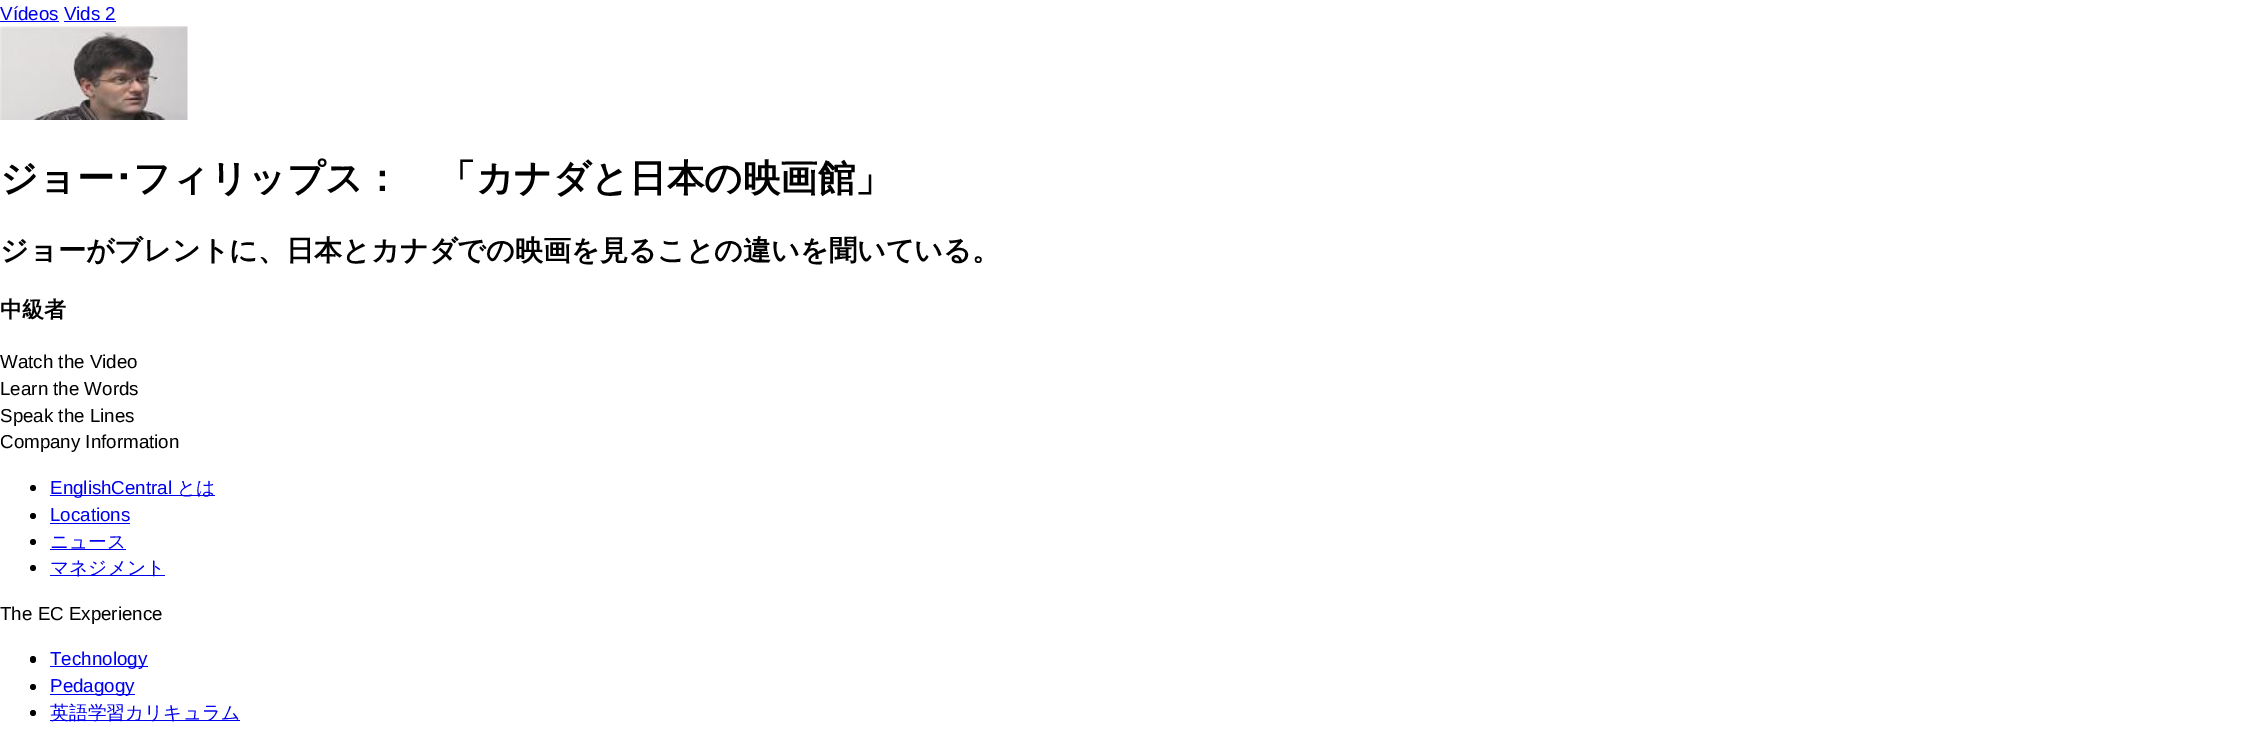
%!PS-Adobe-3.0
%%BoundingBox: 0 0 2242 733
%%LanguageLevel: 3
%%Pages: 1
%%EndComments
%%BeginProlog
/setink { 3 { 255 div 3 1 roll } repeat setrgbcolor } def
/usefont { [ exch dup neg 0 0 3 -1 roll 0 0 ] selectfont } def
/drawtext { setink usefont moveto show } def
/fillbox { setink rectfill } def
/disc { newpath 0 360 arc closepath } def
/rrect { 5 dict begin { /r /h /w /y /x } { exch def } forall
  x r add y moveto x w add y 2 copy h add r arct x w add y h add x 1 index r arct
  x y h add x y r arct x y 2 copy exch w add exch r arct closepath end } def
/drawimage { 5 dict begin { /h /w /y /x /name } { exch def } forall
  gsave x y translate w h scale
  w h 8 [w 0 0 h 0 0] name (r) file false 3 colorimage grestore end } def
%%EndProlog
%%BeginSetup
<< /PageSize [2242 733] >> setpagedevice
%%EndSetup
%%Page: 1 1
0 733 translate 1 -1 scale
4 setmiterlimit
0 0 2242 733 255 255 255 fillbox
(Vídeos Vids 2) 0 20 /LiberationSans-Regular 18.75 0 0 238 drawtext
0 21 59 1 0 0 238 fillbox
64 21 52 1 0 0 238 fillbox
(assets/img1.rgb) 0 26 188 94 drawimage
(ジョー) 0 191 /WenQuanYiZenHei-Bold 37.5 0 0 0 drawtext
(･) 114 191 /IPAPGothic-Bold 37.5 0 0 0 drawtext
(フィリップス：　「カナダと日本の映画館」) 133 191 /WenQuanYiZenHei-Bold 37.5 0 0 0 drawtext
(ジョーがブレントに、日本とカナダでの映画を見ることの違いを聞いている。) 0 260 /WenQuanYiZenHei-Bold 28.1 0 0 0 drawtext
(中級者) 0 317 /WenQuanYiZenHei-Bold 22 0 0 0 drawtext
(Watch the Video) 0 368 /LiberationSans-Regular 18.75 0 0 0 drawtext
(Learn the Words) 0 395 /LiberationSans-Regular 18.75 0 0 0 drawtext
(Speak the Lines) 0 422 /LiberationSans-Regular 18.75 0 0 0 drawtext
(Company Information) 0 448 /LiberationSans-Regular 18.75 0 0 0 drawtext
33 488 3 disc fill
50 495 165 1 0 0 238 fillbox
(EnglishCentral) 50 494 /LiberationSans-Regular 18.75 0 0 238 drawtext
(とは) 177 494 /WenQuanYiZenHei-Medium 18.75 0 0 238 drawtext
0 0 0 setink
33 516 3 disc fill
(Locations) 50 521 /LiberationSans-Regular 18.75 0 0 238 drawtext
50 523 80 1 0 0 238 fillbox
0 0 0 setink
33 542 3 disc fill
(ニュース) 50 548 /WenQuanYiZenHei-Medium 18.75 0 0 238 drawtext
50 549 76 1 0 0 238 fillbox
0 0 0 setink
33 568 3 disc fill
50 575 115 1 0 0 238 fillbox
(マネジメント) 50 574 /WenQuanYiZenHei-Medium 18.75 0 0 238 drawtext
(The EC Experience) 0 620 /LiberationSans-Regular 18.75 0 0 0 drawtext
30 656 6 7 3 rrect fill
50 666 98 1 0 0 238 fillbox
(Technology) 50 665 /LiberationSans-Regular 18.75 0 0 238 drawtext
0 0 0 setink
33 687 3 disc fill
50 694 85 1 0 0 238 fillbox
(Pedagogy) 50 692 /LiberationSans-Regular 18.75 0 0 238 drawtext
0 0 0 setink
33 713 3 disc fill
50 720 190 1 0 0 238 fillbox
(英語学習カリキュラム) 50 719 /WenQuanYiZenHei-Medium 18.75 0 0 238 drawtext
showpage
%%EOF
